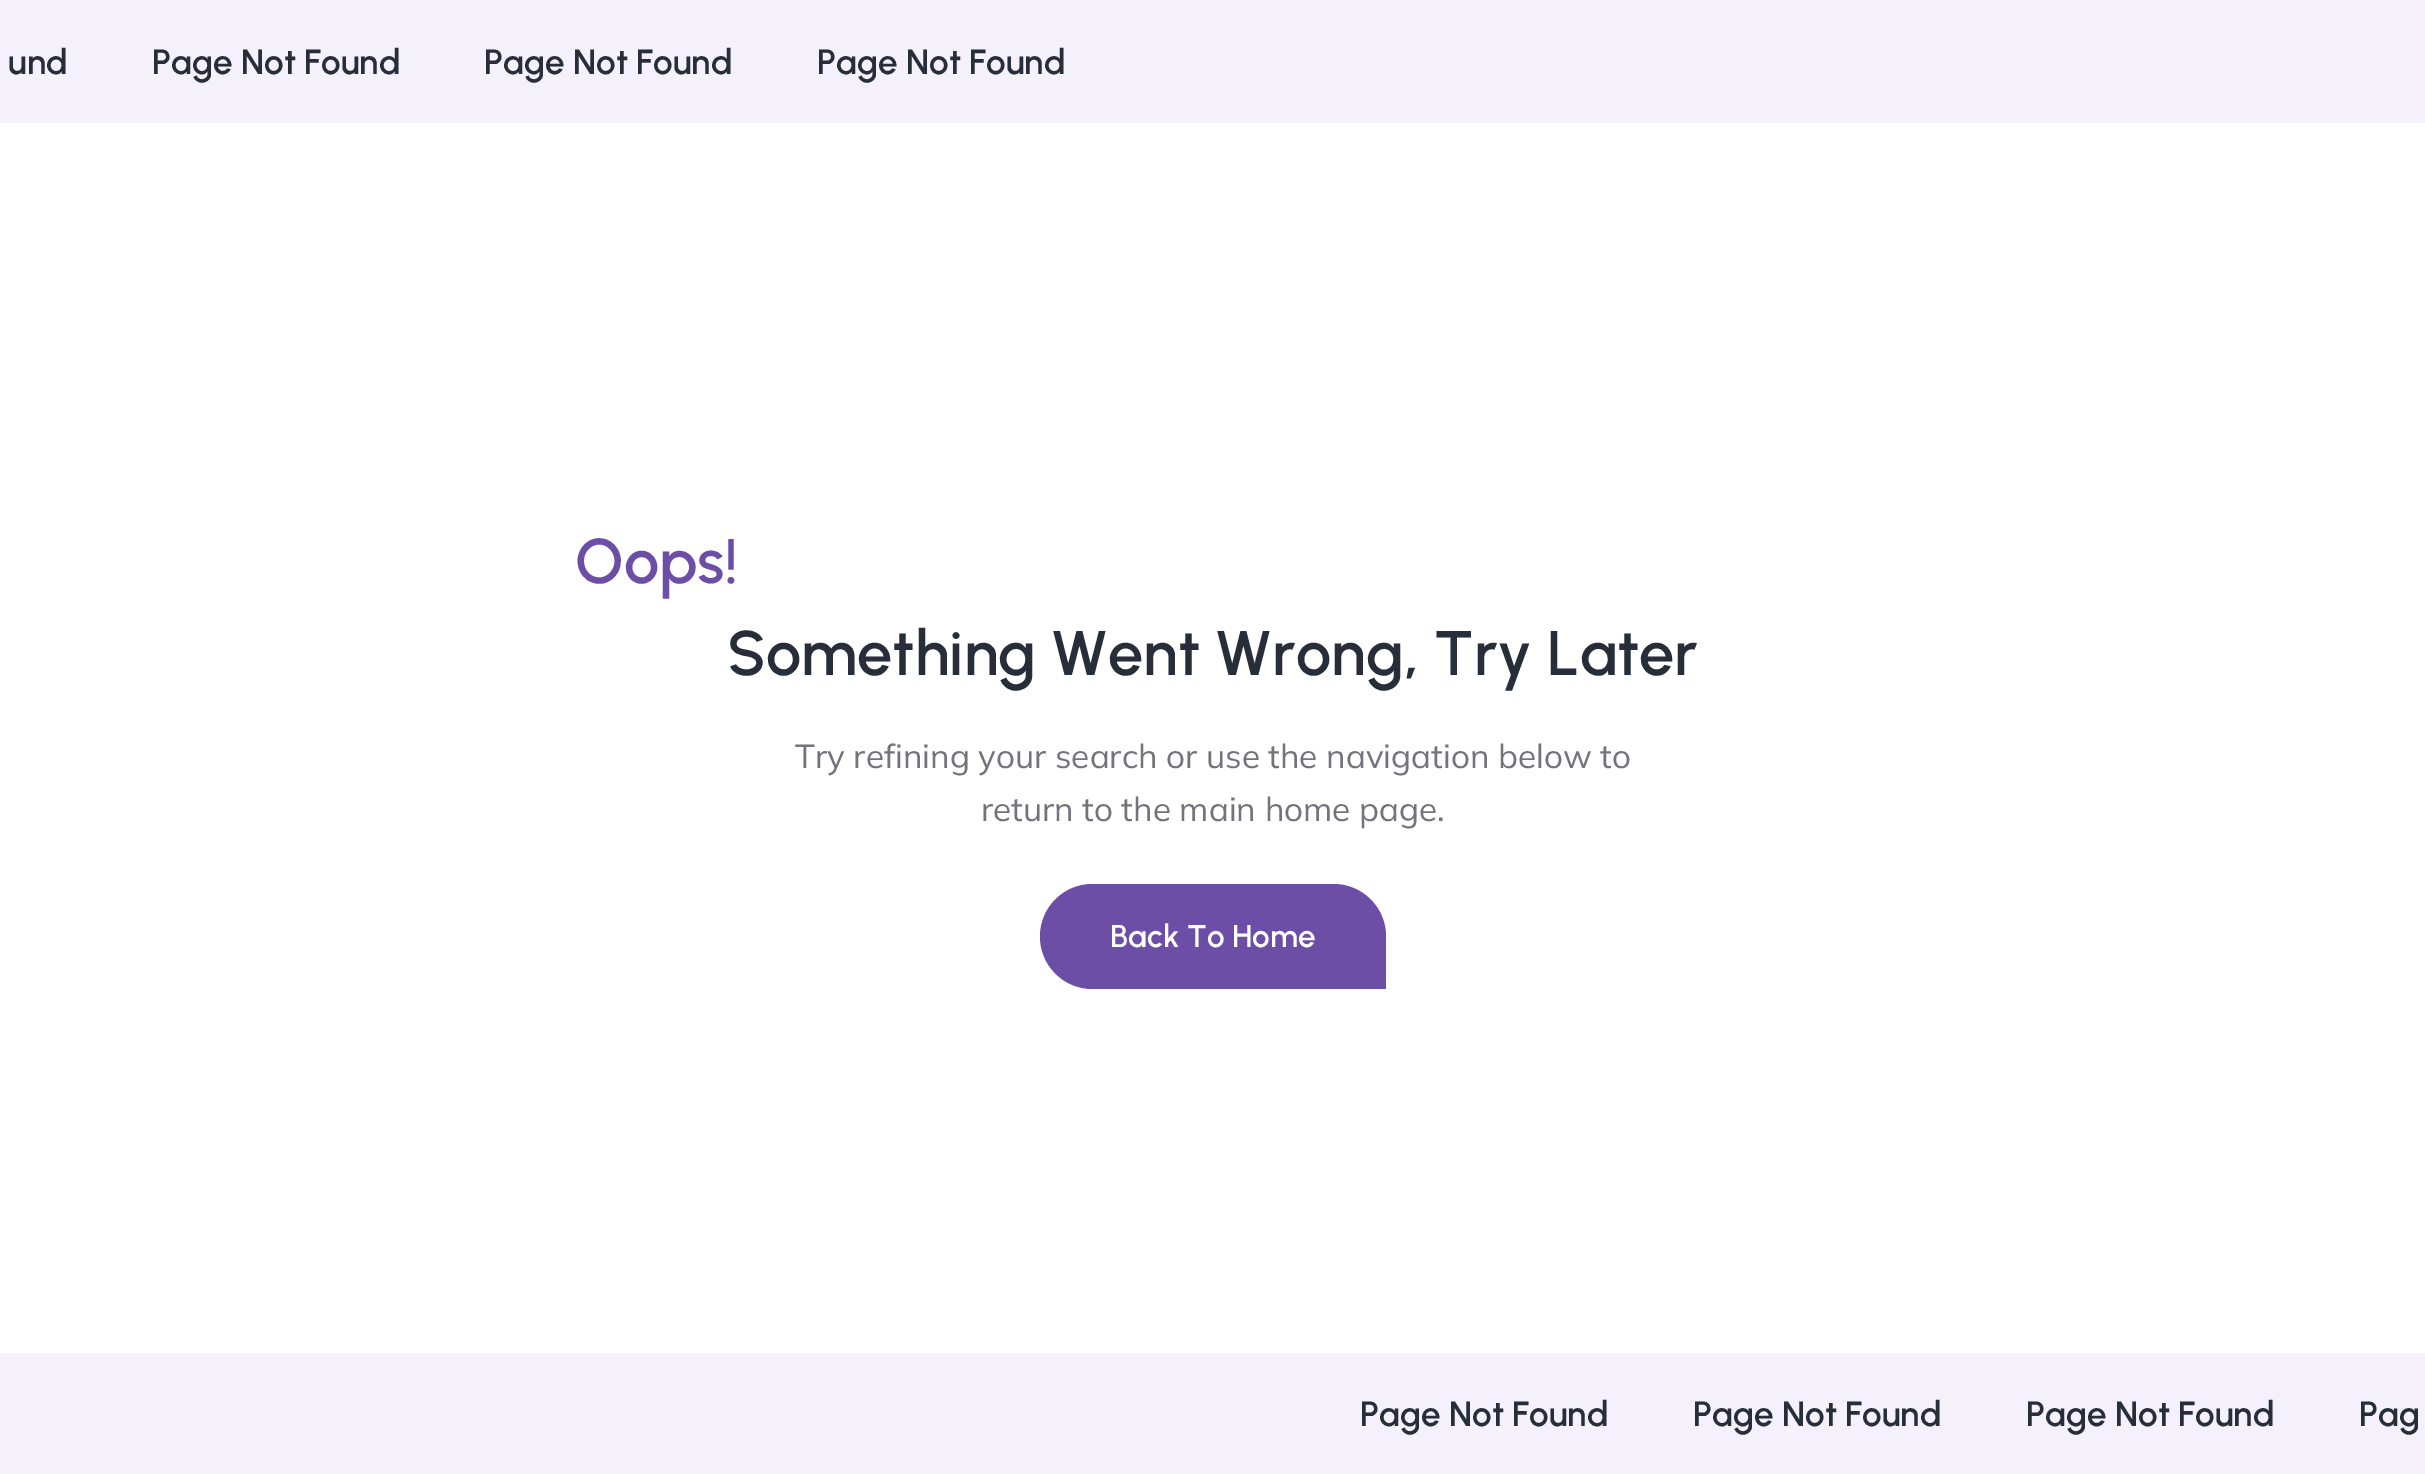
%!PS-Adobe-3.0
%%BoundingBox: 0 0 2425 1474
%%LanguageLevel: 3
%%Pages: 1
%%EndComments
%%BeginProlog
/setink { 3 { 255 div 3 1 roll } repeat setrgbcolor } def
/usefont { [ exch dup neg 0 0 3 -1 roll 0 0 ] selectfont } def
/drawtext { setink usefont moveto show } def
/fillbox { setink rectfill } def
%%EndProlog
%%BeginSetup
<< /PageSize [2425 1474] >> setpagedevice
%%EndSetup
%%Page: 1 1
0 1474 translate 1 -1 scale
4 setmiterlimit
0 0 2425 1474 255 255 255 fillbox
0 0 2425 123 244 241 250 fillbox
(und) 8 74 /Urbanist-SemiBold 35 39 46 57 drawtext
(Page Not Found) 152 74 /Urbanist-SemiBold 35 39 46 57 drawtext
(Page Not Found) 484 74 /Urbanist-SemiBold 35 39 46 57 drawtext
(Page Not Found) 817 74 /Urbanist-SemiBold 35 39 46 57 drawtext
0 1353 2425 121 244 241 250 fillbox
(Page Not Found) 1360 1426 /Urbanist-SemiBold 35 39 46 57 drawtext
(Page Not Found) 1693 1426 /Urbanist-SemiBold 35 39 46 57 drawtext
(Page Not Found) 2026 1426 /Urbanist-SemiBold 35 39 46 57 drawtext
(Pag) 2359 1426 /Urbanist-SemiBold 35 39 46 57 drawtext
(Oops!) 575 583 /Urbanist-SemiBold 63 108 78 167 drawtext
(Something Went Wrong, Try Later) 727 675 /Urbanist-SemiBold 63 39 46 57 drawtext
(Try refining your search or use the navigation below to) 795 768 /Mulish-Regular 33.25 117 114 123 drawtext
(return to the main home page.) 981 821 /Mulish-Regular 33.25 117 114 123 drawtext
108 78 167 setink
1092.5 884 moveto 1333.5 884 lineto 1362.5 884 1386 907.5 1386 936.5 curveto 1386 989 lineto 1092.5 989 lineto 1063.5 989 1040 965.5 1040 936.5 curveto 1040 907.5 1063.5 884 1092.5 884 curveto closepath fill
(Back To Home) 1110 947 /Urbanist-SemiBold 31.5 255 255 255 drawtext
showpage
%%EOF
